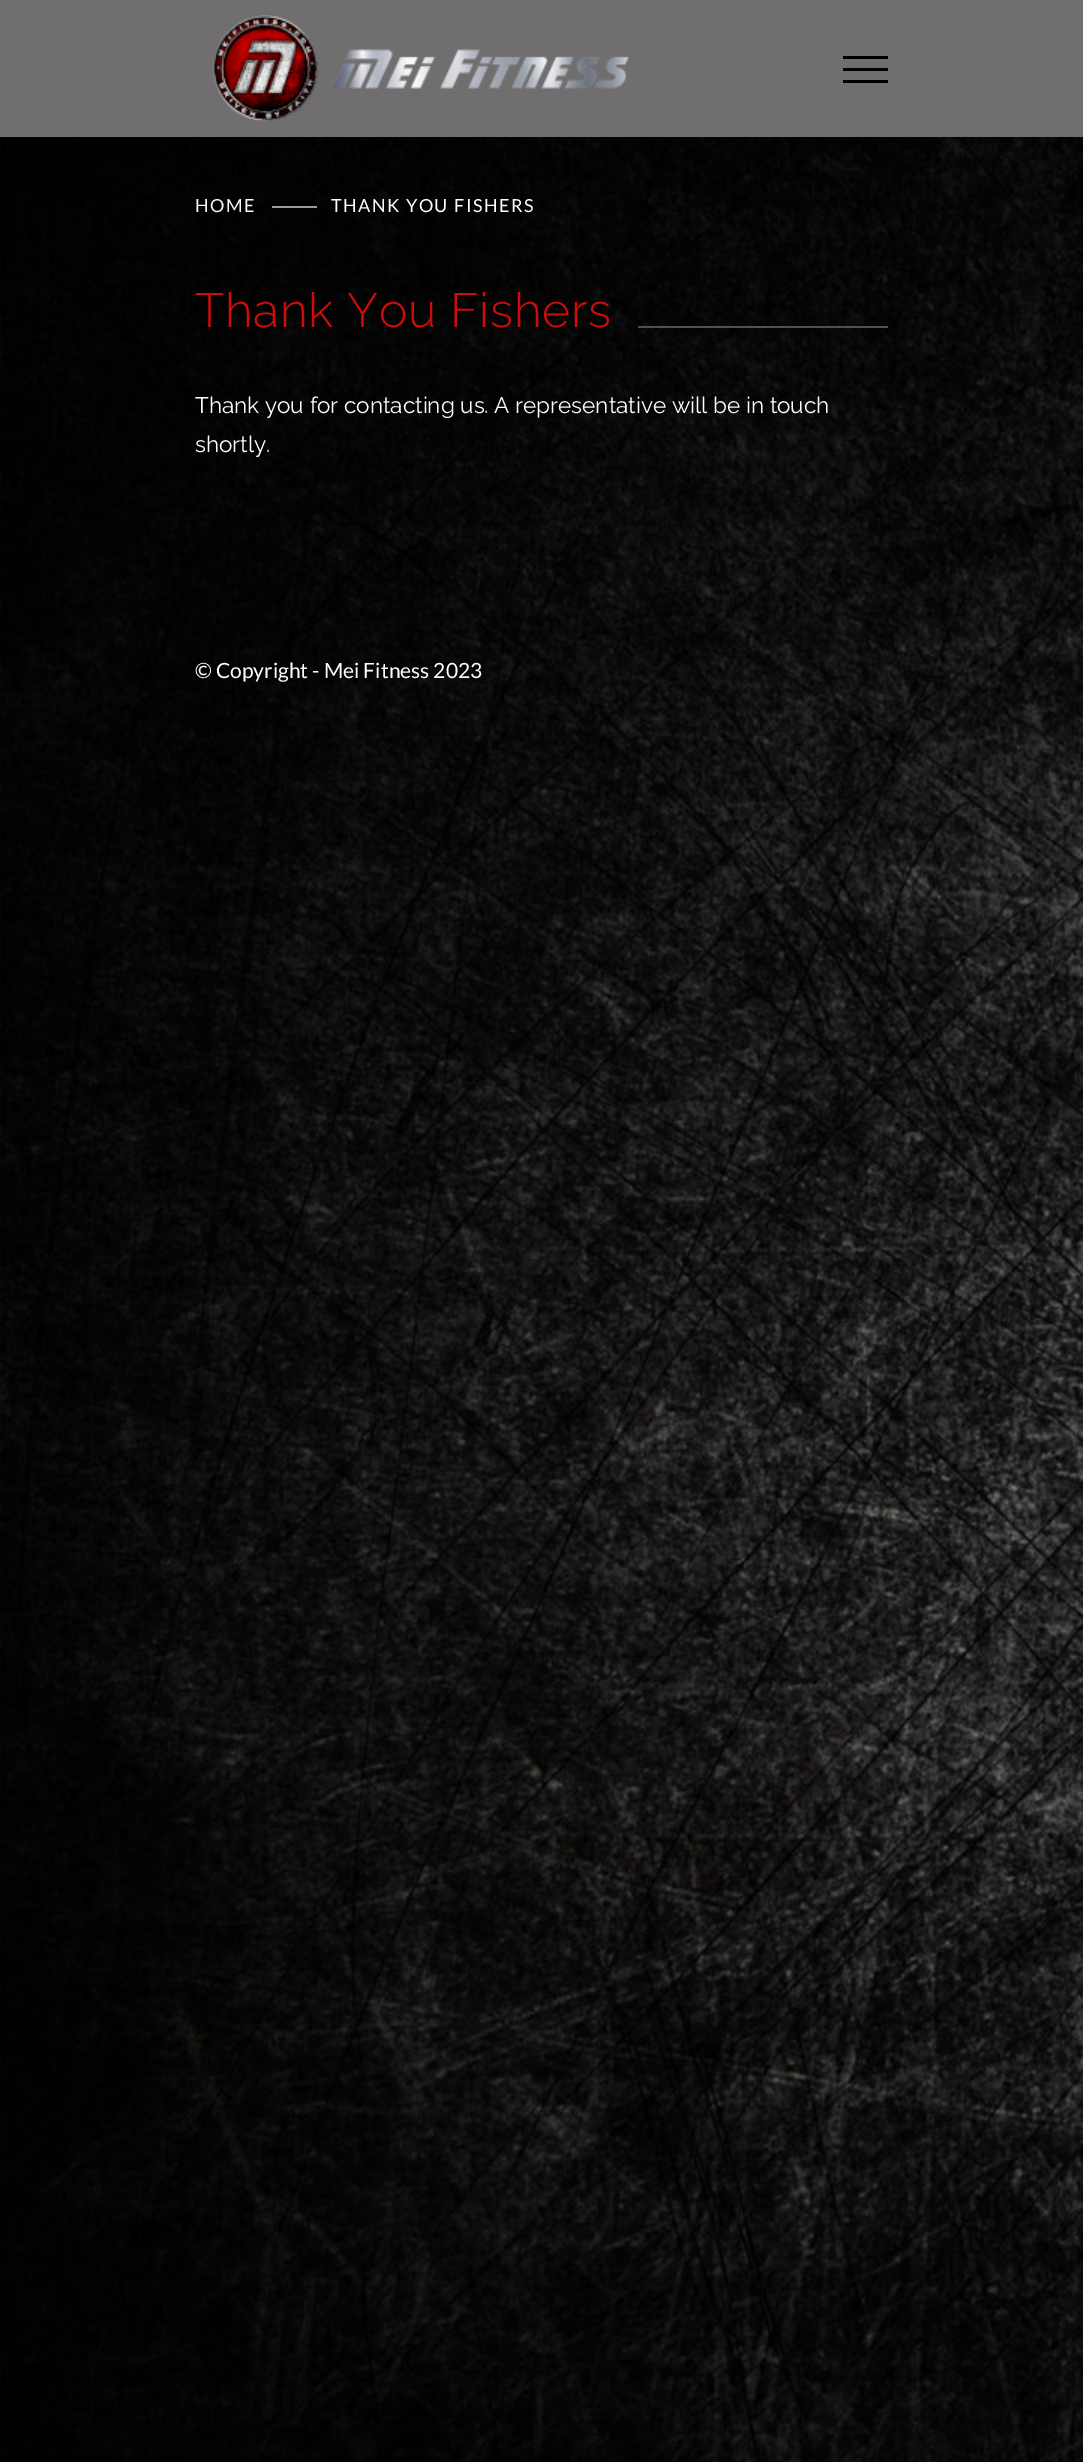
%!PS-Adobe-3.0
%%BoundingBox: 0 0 1083 2462
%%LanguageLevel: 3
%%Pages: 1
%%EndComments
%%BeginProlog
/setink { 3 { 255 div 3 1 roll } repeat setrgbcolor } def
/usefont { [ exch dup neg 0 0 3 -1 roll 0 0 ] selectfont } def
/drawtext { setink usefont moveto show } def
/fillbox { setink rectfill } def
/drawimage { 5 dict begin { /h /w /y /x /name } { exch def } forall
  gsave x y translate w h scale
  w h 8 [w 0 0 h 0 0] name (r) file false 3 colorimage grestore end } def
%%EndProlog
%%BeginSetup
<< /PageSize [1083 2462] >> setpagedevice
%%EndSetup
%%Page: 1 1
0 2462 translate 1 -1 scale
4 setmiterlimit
0 0 1083 2462 255 255 255 fillbox
(assets/img1.rgb) 0 137 1083 2325 drawimage
0 0 1083 137 112 110 110 fillbox
(assets/img2.rgb) 213 15 416 107 drawimage
843 56 45 3 0 0 0 fillbox
843 68 45 3 0 0 0 fillbox
843 80 45 3 0 0 0 fillbox
/Lato-Regular 18 usefont
250 247 247 setink
195 212 moveto 1.5 0 (HOME) ashow
272 206 45 2 153 153 153 fillbox
255 255 255 setink
331 212 moveto 1.5 0 (THANK YOU FISHERS) ashow
/Raleway-Light 48 usefont
207 12 12 setink
195 327 moveto 0.75 0 (Thank You Fishers) ashow
638 326 250 2 81 81 81 fillbox
(Thank you for contacting us. A representative will be in touch) 195 413 /Raleway-Regular 22.5 255 255 255 drawtext
(shortly.) 195 452 /Raleway-Regular 22.5 255 255 255 drawtext
(© Copyright - Mei Fitness 2023) 195 678 /Lato-Regular 21 255 255 255 drawtext
showpage
%%EOF
